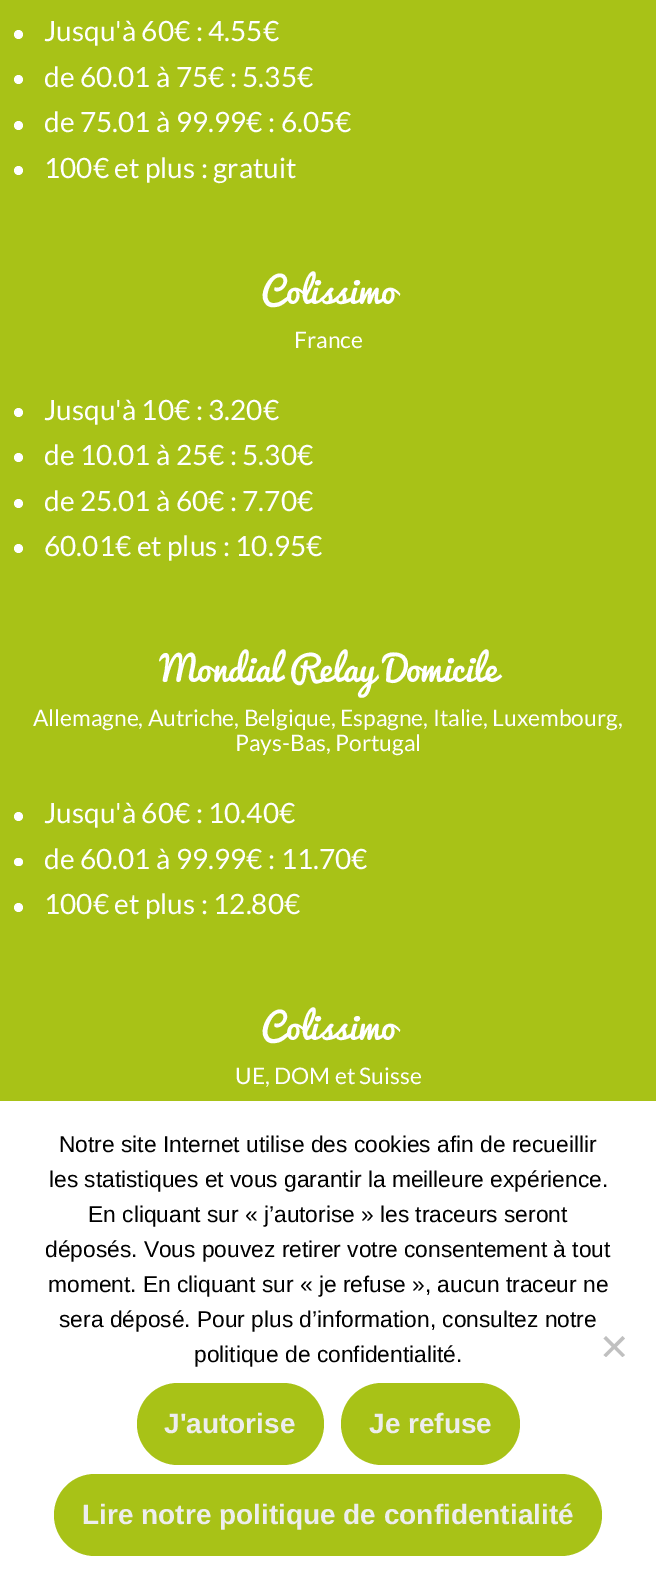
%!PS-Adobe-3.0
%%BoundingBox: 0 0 656 1590
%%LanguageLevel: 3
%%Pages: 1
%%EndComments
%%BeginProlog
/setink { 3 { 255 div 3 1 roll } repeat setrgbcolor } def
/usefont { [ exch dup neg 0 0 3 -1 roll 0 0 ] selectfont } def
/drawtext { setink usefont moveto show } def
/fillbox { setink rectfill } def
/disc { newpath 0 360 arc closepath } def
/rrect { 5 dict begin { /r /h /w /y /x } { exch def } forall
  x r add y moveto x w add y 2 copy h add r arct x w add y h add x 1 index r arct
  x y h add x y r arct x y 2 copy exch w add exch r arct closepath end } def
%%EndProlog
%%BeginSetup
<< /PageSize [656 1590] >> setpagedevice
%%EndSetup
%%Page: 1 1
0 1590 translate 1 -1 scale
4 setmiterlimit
0 0 656 1590 168 194 23 fillbox
255 255 255 setink
18.5 34.5 4.5 disc fill
(Jusqu'à 60€ : 4.55€) 44 41 /Lato-Regular 28 255 255 255 drawtext
18.5 79.5 4.5 disc fill
(de 60.01 à 75€ : 5.35€) 44 87 /Lato-Regular 28 255 255 255 drawtext
18.5 125.5 4.5 disc fill
(de 75.01 à 99.99€ : 6.05€) 44 132 /Lato-Regular 28 255 255 255 drawtext
18.5 170.5 4.5 disc fill
(100€ et plus : gratuit) 44 178 /Lato-Regular 28 255 255 255 drawtext
(Colissimo) 261 304 /Pacifico-Regular 35 255 255 255 drawtext
(France) 294 348 /Lato-Regular 22.75 255 255 255 drawtext
18.5 412.5 4.5 disc fill
(Jusqu'à 10€ : 3.20€) 44 420 /Lato-Regular 28 255 255 255 drawtext
18.5 457.5 4.5 disc fill
(de 10.01 à 25€ : 5.30€) 44 465 /Lato-Regular 28 255 255 255 drawtext
18.5 503.5 4.5 disc fill
(de 25.01 à 60€ : 7.70€) 44 511 /Lato-Regular 28 255 255 255 drawtext
18.5 548.5 4.5 disc fill
(60.01€ et plus : 10.95€) 44 556 /Lato-Regular 28 255 255 255 drawtext
(Mondial Relay Domicile) 160 682 /Pacifico-Regular 35 255 255 255 drawtext
(Allemagne, Autriche, Belgique, Espagne, Italie, Luxembourg,) 33 726 /Lato-Regular 22.75 255 255 255 drawtext
(Pays-Bas, Portugal) 235 751 /Lato-Regular 22.75 255 255 255 drawtext
18.5 816.5 4.5 disc fill
(Jusqu'à 60€ : 10.40€) 44 823 /Lato-Regular 28 255 255 255 drawtext
14 858 9 8 4 rrect fill
(de 60.01 à 99.99€ : 11.70€) 44 869 /Lato-Regular 28 255 255 255 drawtext
18.5 907.5 4.5 disc fill
(100€ et plus : 12.80€) 44 914 /Lato-Regular 28 255 255 255 drawtext
(Colissimo) 261 1040 /Pacifico-Regular 35 255 255 255 drawtext
(UE, DOM et Suisse) 235 1084 /Lato-Regular 22.75 255 255 255 drawtext
0 1101 656 489 255 255 255 fillbox
(Notre site Internet utilise des cookies afin de recueillir) 59 1152 /LiberationSans-Regular 22.75 0 0 0 drawtext
(les statistiques et vous garantir la meilleure expérience.) 49 1187 /LiberationSans-Regular 22.75 0 0 0 drawtext
(En cliquant sur « j’autorise » les traceurs seront) 88 1222 /LiberationSans-Regular 22.75 0 0 0 drawtext
(déposés. Vous pouvez retirer votre consentement à tout) 45 1257 /LiberationSans-Regular 22.75 0 0 0 drawtext
(moment. En cliquant sur « je refuse », aucun traceur ne) 48 1292 /LiberationSans-Regular 22.75 0 0 0 drawtext
(sera déposé. Pour plus d’information, consultez notre) 59 1327 /LiberationSans-Regular 22.75 0 0 0 drawtext
(politique de confidentialité.) 194 1362 /LiberationSans-Regular 22.75 0 0 0 drawtext
192 192 192 setink
622.5 1336 moveto 625 1338.5 lineto 606 1357 lineto 603.5 1355 lineto closepath fill
603.5 1338.5 moveto 606 1336 lineto 625 1355 lineto 622.5 1357 lineto closepath fill
168 194 23 setink
137 1383 187 82 41 rrect fill
(J'autorise) 164 1433 /LiberationSans-Bold 28 237 237 237 drawtext
168 194 23 setink
341 1383 179 82 41 rrect fill
(Je refuse) 369 1433 /LiberationSans-Bold 28 237 237 237 drawtext
168 194 23 setink
54 1474 548 82 41 rrect fill
(Lire notre politique de confidentialité) 82 1524 /LiberationSans-Bold 28 237 237 237 drawtext
showpage
%%EOF
